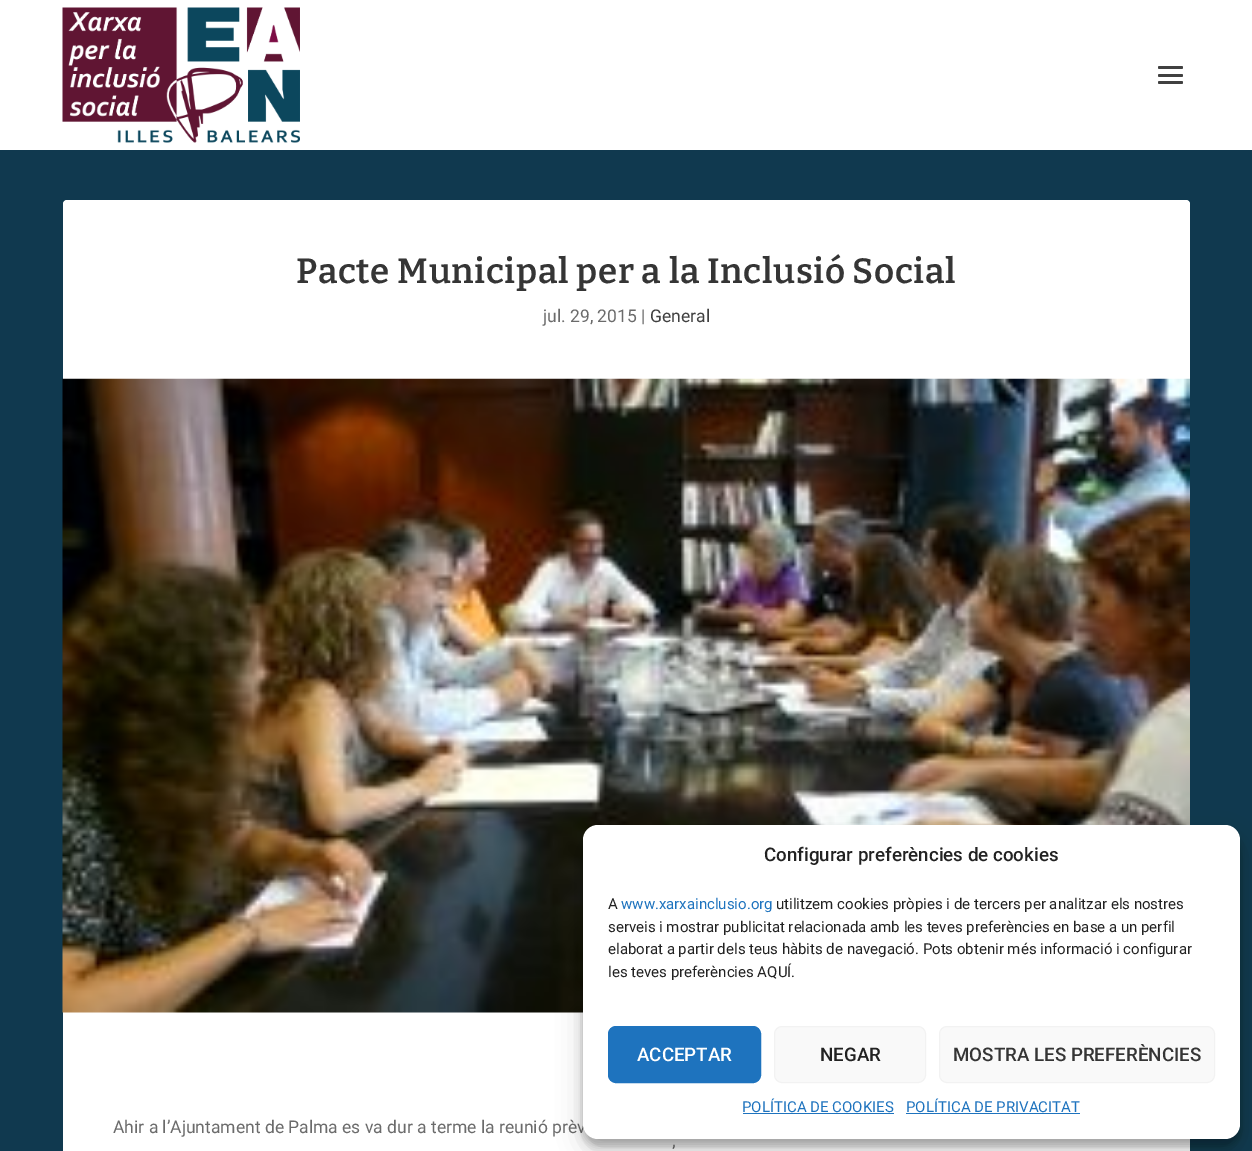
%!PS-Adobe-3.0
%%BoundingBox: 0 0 1252 1151
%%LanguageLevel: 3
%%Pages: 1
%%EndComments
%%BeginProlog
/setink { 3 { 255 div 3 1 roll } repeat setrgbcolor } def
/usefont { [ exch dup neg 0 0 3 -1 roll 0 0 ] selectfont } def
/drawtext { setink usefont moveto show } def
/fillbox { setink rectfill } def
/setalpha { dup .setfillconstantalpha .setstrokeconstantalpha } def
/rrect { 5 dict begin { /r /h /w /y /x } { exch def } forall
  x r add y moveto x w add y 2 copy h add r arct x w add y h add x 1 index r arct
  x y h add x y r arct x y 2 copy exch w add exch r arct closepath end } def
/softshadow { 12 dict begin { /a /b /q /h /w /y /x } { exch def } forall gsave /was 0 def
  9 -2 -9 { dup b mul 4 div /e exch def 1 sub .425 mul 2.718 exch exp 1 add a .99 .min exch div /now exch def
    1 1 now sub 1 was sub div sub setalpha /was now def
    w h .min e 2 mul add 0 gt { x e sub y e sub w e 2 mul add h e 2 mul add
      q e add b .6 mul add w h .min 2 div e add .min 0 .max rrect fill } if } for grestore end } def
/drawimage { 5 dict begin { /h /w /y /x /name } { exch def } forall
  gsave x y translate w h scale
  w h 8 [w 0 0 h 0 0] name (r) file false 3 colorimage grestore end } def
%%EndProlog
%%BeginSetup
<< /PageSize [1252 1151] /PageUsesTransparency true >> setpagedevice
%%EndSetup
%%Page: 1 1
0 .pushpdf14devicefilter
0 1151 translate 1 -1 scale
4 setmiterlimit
0 0 1252 1151 16 57 79 fillbox
0 0 1252 150 255 255 255 fillbox
(assets/img1.rgb) 62 7 238 136 drawimage
64 64 64 setink
1158 66 25 3 1.5 rrect fill
1158 74 25 3 1.5 rrect fill
1158 81 25 3 1.5 rrect fill
255 255 255 setink
63 200 1127 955 4 rrect fill
/Bitter-Thin 35 usefont
53 53 53 setink
296 283 moveto 0.6 0 (Pacte Municipal per a la Inclusió Social) ashow
(jul. 29, 2015 |) 543 322 /Roboto-Regular 17.5 107 107 107 drawtext
(General) 650 322 /Roboto-Regular 17.5 64 64 64 drawtext
(assets/img2.rgb) 62 378 1128 635 drawimage
(Ahir a l’Ajuntament de Palma es va dur a terme la reunió prèv) 113 1133 /Roboto-Regular 17.5 107 107 107 drawtext
(’) 672 1158 /Roboto-Regular 17.5 107 107 107 drawtext
0 0 0 setink
583 833 657 313 15 4 0.23 softshadow
583 838 657 313 15 12.5 0.19 softshadow
255 255 255 setink
583 825 657 314 15 rrect fill
(Configurar preferències de cookies) 764 861 /Roboto-Medium 18.75 34 34 34 drawtext
(A) 608 909 /Roboto-Regular 15 34 34 34 drawtext
(www.xarxainclusio.org) 621 909 /Roboto-Regular 15 30 115 190 drawtext
(utilitzem cookies pròpies i de tercers per analitzar els nostres) 776 909 /Roboto-Regular 15 34 34 34 drawtext
(serveis i mostrar publicitat relacionada amb les teves preferències en base a un perfil) 608 932 /Roboto-Regular 15 34 34 34 drawtext
(elaborat a partir dels teus hàbits de navegació. Pots obtenir més informació i configurar) 608 954 /Roboto-Regular 15 34 34 34 drawtext
(les teves preferències AQUÍ.) 608 977 /Roboto-Regular 15 34 34 34 drawtext
30 115 190 setink
608.5 1026.5 152 56 7.5 rrect gsave fill grestore
stroke
(ACCEPTAR) 637 1061 /Roboto-Medium 18.75 255 255 255 drawtext
249 249 249 setink
774.5 1026.5 151 56 7.5 rrect gsave fill grestore
242 242 242 setink
stroke
(NEGAR) 820 1061 /Roboto-Medium 18.75 34 34 34 drawtext
249 249 249 setink
939.5 1026.5 275 56 7.5 rrect gsave fill grestore
242 242 242 setink
stroke
(MOSTRA LES PREFERÈNCIES) 953 1061 /Roboto-Medium 18.75 53 53 53 drawtext
(POLÍTICA DE COOKIES) 742 1112 /Roboto-Regular 15 30 115 190 drawtext
743 1113 151 1 30 115 190 fillbox
(POLÍTICA DE PRIVACITAT) 906 1112 /Roboto-Regular 15 30 115 190 drawtext
906 1113 174 1 30 115 190 fillbox
.poppdf14devicefilter showpage
%%EOF
